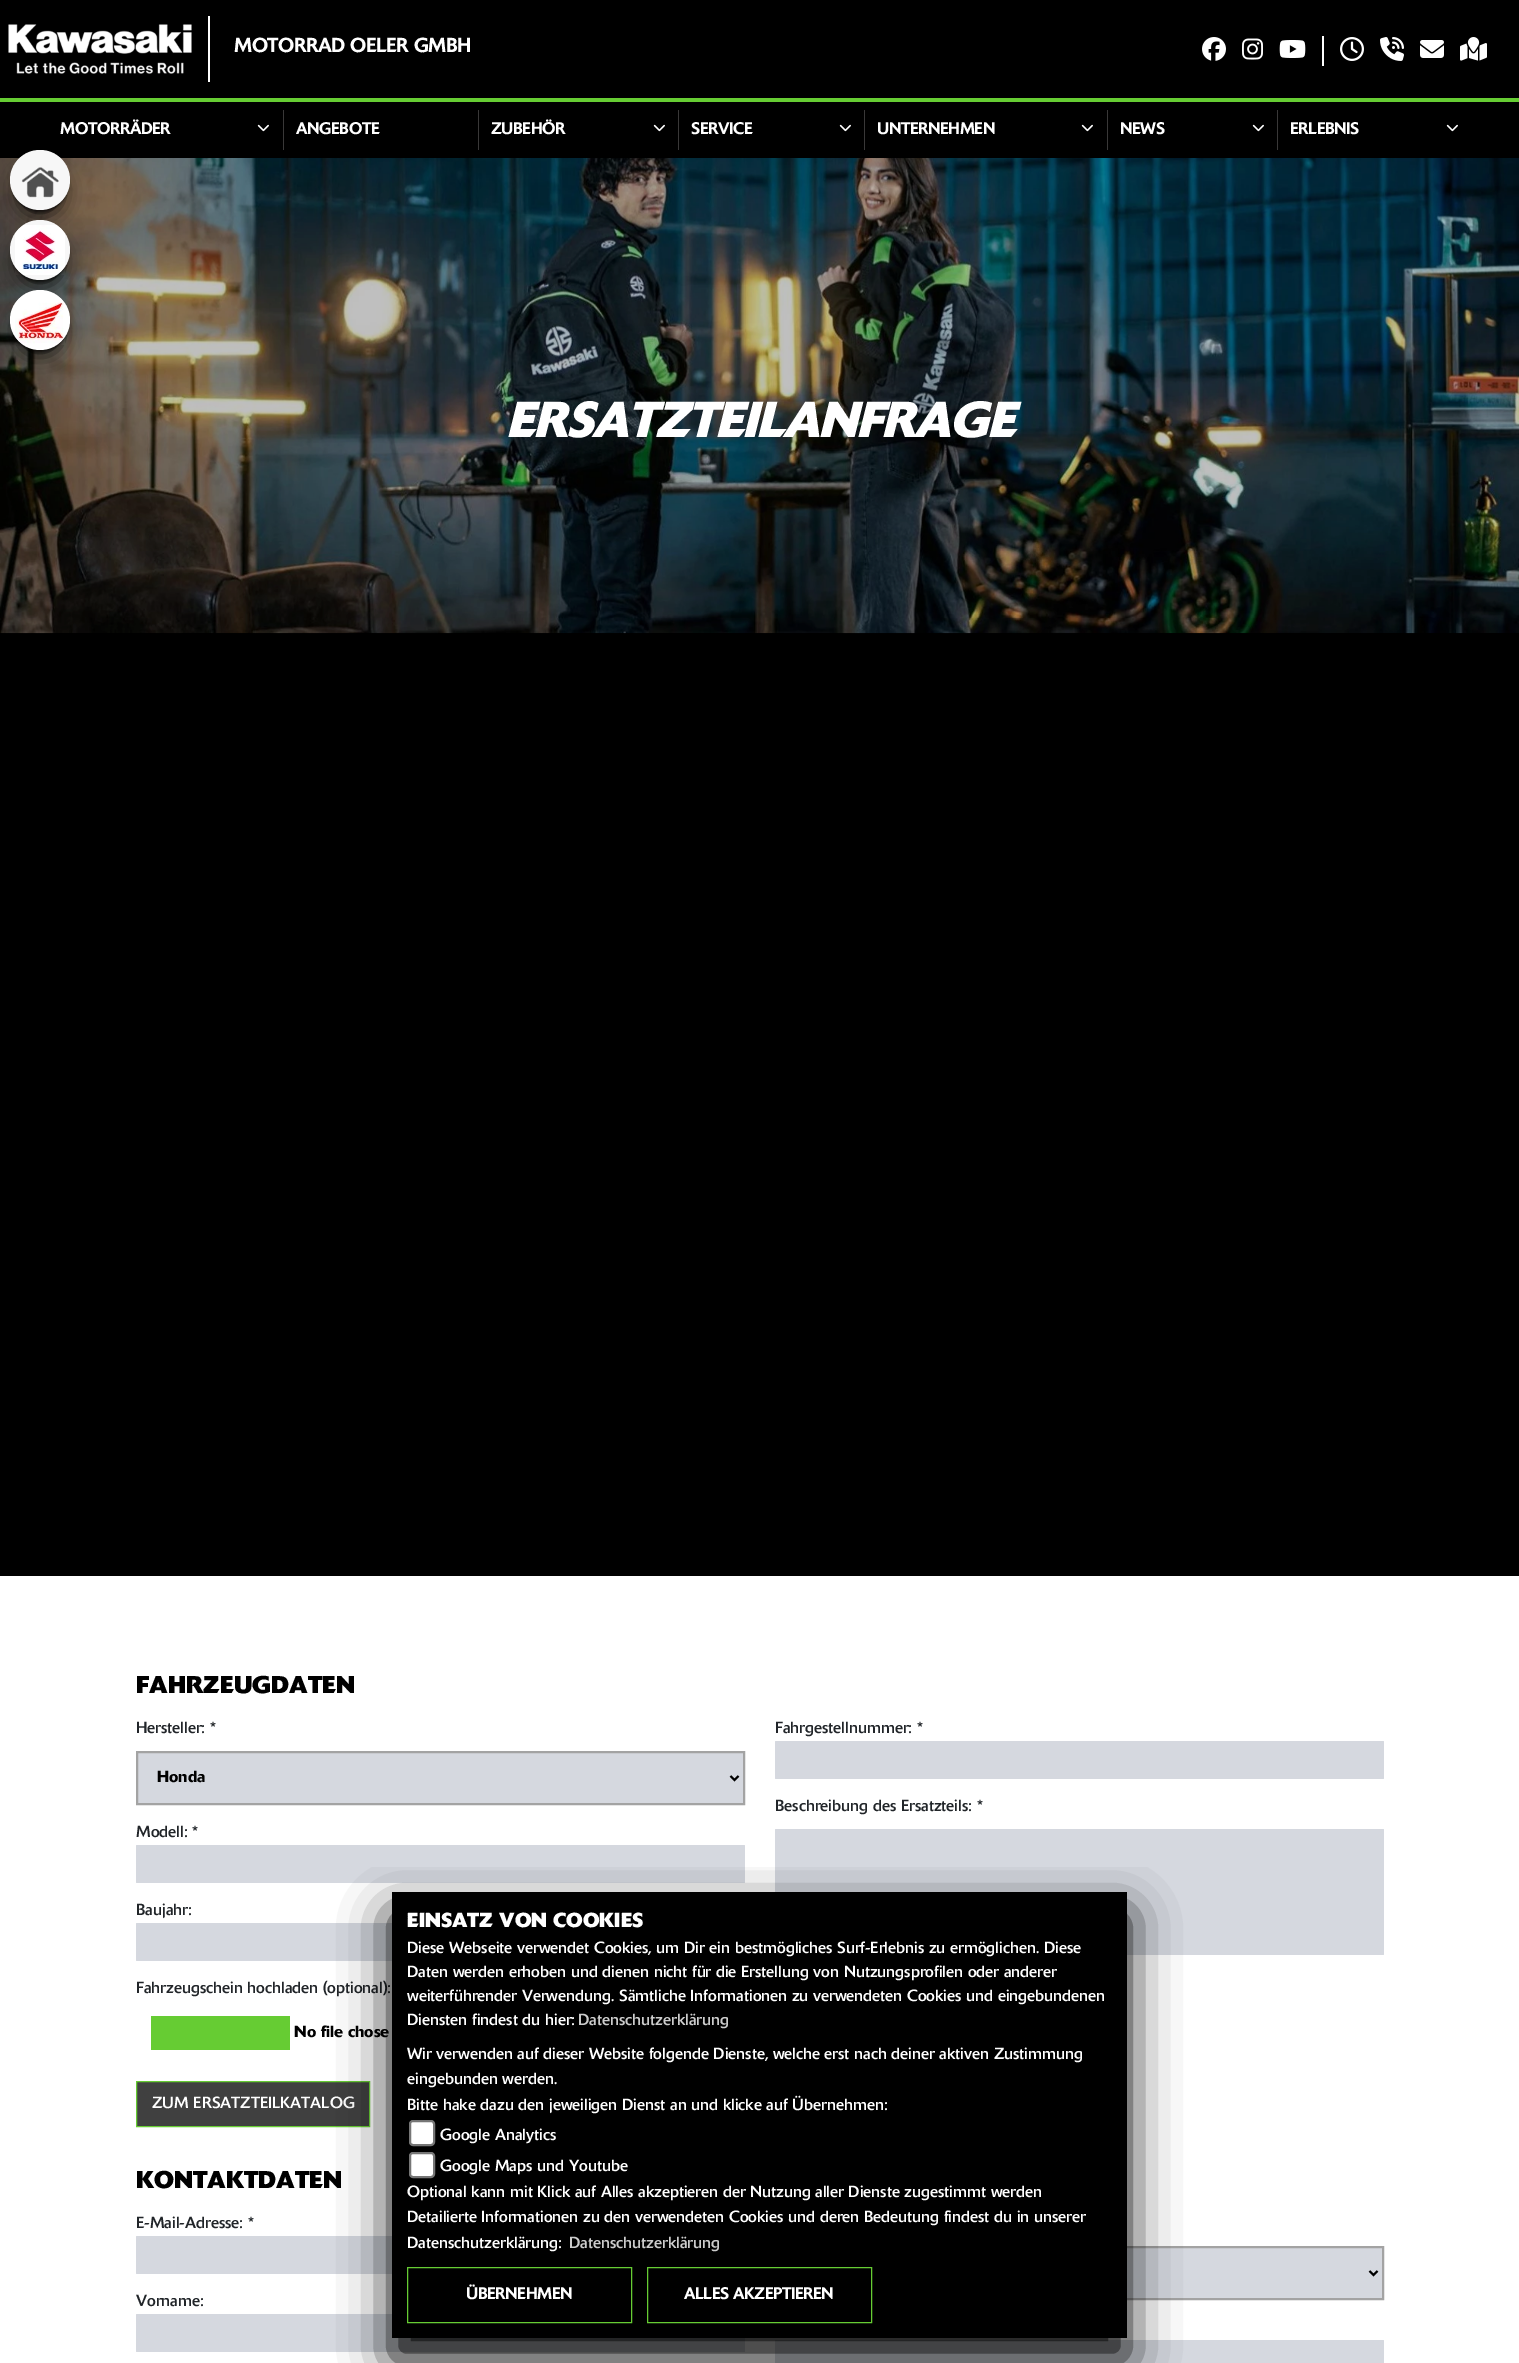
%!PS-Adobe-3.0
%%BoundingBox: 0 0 1519 2363
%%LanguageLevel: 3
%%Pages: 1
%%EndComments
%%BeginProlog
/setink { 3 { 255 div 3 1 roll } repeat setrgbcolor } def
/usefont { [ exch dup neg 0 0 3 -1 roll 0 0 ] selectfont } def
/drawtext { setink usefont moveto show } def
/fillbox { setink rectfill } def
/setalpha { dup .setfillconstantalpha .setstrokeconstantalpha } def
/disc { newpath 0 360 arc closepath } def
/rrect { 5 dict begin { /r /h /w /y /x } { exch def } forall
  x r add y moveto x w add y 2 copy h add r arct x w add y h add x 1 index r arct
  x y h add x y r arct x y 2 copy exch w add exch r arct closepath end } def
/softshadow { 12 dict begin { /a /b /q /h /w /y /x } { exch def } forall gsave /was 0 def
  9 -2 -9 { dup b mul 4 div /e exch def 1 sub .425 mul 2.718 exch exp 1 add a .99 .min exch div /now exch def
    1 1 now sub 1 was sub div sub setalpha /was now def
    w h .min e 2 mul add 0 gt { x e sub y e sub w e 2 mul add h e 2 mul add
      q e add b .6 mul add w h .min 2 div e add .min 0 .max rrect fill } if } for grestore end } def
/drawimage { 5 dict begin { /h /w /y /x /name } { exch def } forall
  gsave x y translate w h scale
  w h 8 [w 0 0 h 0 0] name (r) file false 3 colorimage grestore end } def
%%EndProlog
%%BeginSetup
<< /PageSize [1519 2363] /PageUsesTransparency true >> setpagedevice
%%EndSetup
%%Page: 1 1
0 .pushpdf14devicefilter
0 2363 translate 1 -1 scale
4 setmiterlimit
0 0 1519 2363 255 255 255 fillbox
0 0 1519 158 0 0 0 fillbox
0 98 1519 4 102 204 51 fillbox
(assets/img1.rgb) 8 24 184 50 drawimage
208 16 2 66 255 255 255 fillbox
(MOTORRAD OELER GMBH) 234 52 /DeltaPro-Bold 19.25 255 255 255 drawtext
(assets/img2.rgb) 1202 37 24 24 drawimage
(assets/img3.rgb) 1242 38 21 22 drawimage
(assets/img4.rgb) 1279 40 27 18 drawimage
1322 36 2 30 255 255 255 fillbox
(assets/img5.rgb) 1340 37 24 24 drawimage
(assets/img6.rgb) 1380 37 24 24 drawimage
(assets/img7.rgb) 1420 40 24 18 drawimage
(assets/img8.rgb) 1460 37 27 24 drawimage
283 110 1 40 57 56 56 fillbox
(MOTORRÄDER) 60 134 /DeltaPro-Bold 16 255 255 255 drawtext
(assets/img9.rgb) 257 124 12 8 drawimage
478 110 1 40 57 56 56 fillbox
(ANGEBOTE) 296 134 /DeltaPro-Bold 16 255 255 255 drawtext
678 110 1 40 57 56 56 fillbox
(ZUBEHÖR) 491 134 /DeltaPro-Bold 16 255 255 255 drawtext
(assets/img9.rgb) 653 124 12 8 drawimage
864 110 1 40 57 56 56 fillbox
(SERVICE) 691 134 /DeltaPro-Bold 16 255 255 255 drawtext
(assets/img9.rgb) 839 124 12 8 drawimage
1107 110 1 40 57 56 56 fillbox
(UNTERNEHMEN) 877 134 /DeltaPro-Bold 16 255 255 255 drawtext
(assets/img9.rgb) 1081 124 12 8 drawimage
1277 110 1 40 57 56 56 fillbox
(NEWS) 1120 134 /DeltaPro-Bold 16 255 255 255 drawtext
(assets/img9.rgb) 1252 124 12 8 drawimage
(ERLEBNIS) 1290 134 /DeltaPro-Bold 16 255 255 255 drawtext
(assets/img9.rgb) 1446 124 12 8 drawimage
0 633 1519 943 0 0 0 fillbox
(assets/img13.rgb) 0 158 1519 476 drawimage
20 172 40 40 20 10 1 softshadow
11 154 58 58 29 1 0.5 softshadow
247 247 247 setink
40 180 30 disc fill
(assets/img10.rgb) 21 167 38 31 drawimage
0 0 0 setink
20 242 40 40 20 10 1 softshadow
11 224 58 58 29 1 0.5 softshadow
247 247 247 setink
40 250 30 disc fill
(assets/img11.rgb) 15 225 50 50 drawimage
0 0 0 setink
20 312 40 40 20 10 1 softshadow
11 294 58 58 29 1 0.5 softshadow
255 255 255 setink
40 320 30 disc fill
(assets/img12.rgb) 15 295 50 50 drawimage
(ERSATZTEILANFRAGE) 506 437 /DeltaPro-BoldItalic 48 255 255 255 drawtext
(FAHRZEUGDATEN) 136 1693 /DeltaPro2-Bold 24 0 0 0 drawtext
(Hersteller: *) 136 1733 /DeltaPro-Regular 16 33 37 41 drawtext
213 216 223 setink
137 1752 moveto 744 1752 lineto 744 1804 lineto 137 1804 lineto closepath gsave fill grestore
163 163 163 setink
2 setlinewidth
stroke
0 0 0 setink
730.5 1776 moveto 734.5 1780 lineto 738.5 1776 lineto stroke
(Honda) 157 1782 /DeltaPro-Medium 16 0 0 0 drawtext
(Modell: *) 136 1837 /DeltaPro-Regular 16 33 37 41 drawtext
213 216 223 setink
136 1845 609 38 1 rrect fill
(Baujahr:) 136 1915 /DeltaPro-Regular 16 33 37 41 drawtext
213 216 223 setink
136 1923 609 38 1 rrect fill
(Fahrzeugschein hochladen \(optional\):) 136 1993 /DeltaPro-Regular 16 33 37 41 drawtext
151 2016 139 34 102 204 51 fillbox
(No file chose) 294 2037 /DeltaPro-Medium 16 0 0 0 drawtext
(Fahrgestellnummer: *) 775 1733 /DeltaPro-Regular 16 33 37 41 drawtext
213 216 223 setink
775 1741 609 38 1 rrect fill
(Beschreibung des Ersatzteils: *) 775 1811 /DeltaPro-Regular 16 33 37 41 drawtext
213 216 223 setink
775 1829 609 126 1 rrect fill
64 64 64 setink
136.5 2081.5 moveto 369.5 2081.5 lineto 369.5 2126.5 lineto 136.5 2126.5 lineto closepath gsave fill grestore
102 204 51 setink
1 setlinewidth
stroke
(ZUM ERSATZTEILKATALOG) 152 2108 /DeltaPro-Regular 16 255 255 255 drawtext
(KONTAKTDATEN) 136 2188 /DeltaPro2-Bold 24 0 0 0 drawtext
(E-Mail-Adresse: *) 136 2228 /DeltaPro-Regular 16 33 37 41 drawtext
213 216 223 setink
136 2236 609 38 1 rrect fill
(Vorname:) 136 2306 /DeltaPro-Regular 16 33 37 41 drawtext
213 216 223 setink
136 2314 609 38 1 rrect fill
776 2247 moveto 1383 2247 lineto 1383 2299 lineto 776 2299 lineto closepath gsave fill grestore
163 163 163 setink
2 setlinewidth
stroke
0 0 0 setink
1369.5 2271 moveto 1373.5 2275 lineto 1377.5 2271 lineto stroke
213 216 223 setink
775 2340 609 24 1 rrect fill
gsave
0 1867 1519 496 rectclip
0 0 0 setink
392 1914 735 446 0 25 1 softshadow
grestore
392 1892 735 446 0 0 0 fillbox
(EINSATZ VON COOKIES) 407 1927 /DeltaPro2-Bold 20 255 255 255 drawtext
(Diese Webseite verwendet Cookies, um Dir ein bestmögliches Surf-Erlebnis zu ermöglichen. Diese) 407 1953 /DeltaPro-Regular 16 255 255 255 drawtext
(Daten werden erhoben und dienen nicht für die Erstellung von Nutzungsprofilen oder anderer) 407 1977 /DeltaPro-Regular 16 255 255 255 drawtext
(weiterführender Verwendung. Sämtliche Informationen zu verwendeten Cookies und eingebundenen) 407 2001 /DeltaPro-Regular 16 255 255 255 drawtext
(Diensten findest du hier:) 407 2025 /DeltaPro-Regular 16 255 255 255 drawtext
(Datenschutzerklärung) 578 2025 /DeltaPro-Regular 16 204 204 204 drawtext
(Wir verwenden auf dieser Website folgende Dienste, welche erst nach deiner aktiven Zustimmung) 407 2059 /DeltaPro-Regular 16 255 255 255 drawtext
(eingebunden werden.) 407 2084 /DeltaPro-Regular 16 255 255 255 drawtext
(Bitte hake dazu den jeweiligen Dienst an und klicke auf Übernehmen:) 407 2110 /DeltaPro-Regular 16 255 255 255 drawtext
410 2121 24 24 3 rrect gsave fill grestore
118 118 118 setink
stroke
(Google Analytics) 440 2140 /DeltaPro-Regular 16 255 255 255 drawtext
410 2153 24 24 3 rrect gsave fill grestore
118 118 118 setink
stroke
(Google Maps und Youtube) 440 2171 /DeltaPro-Regular 16 255 255 255 drawtext
(Optional kann mit Klick auf Alles akzeptieren der Nutzung aller Dienste zugestimmt werden) 407 2197 /DeltaPro-Regular 16 255 255 255 drawtext
(Detailierte Informationen zu den verwendeten Cookies und deren Bedeutung findest du in unserer) 407 2222 /DeltaPro-Regular 16 255 255 255 drawtext
(Datenschutzerklärung:) 407 2248 /DeltaPro-Regular 16 255 255 255 drawtext
(Datenschutzerklärung) 569 2248 /DeltaPro-Regular 16 204 204 204 drawtext
102 204 51 setink
1 setlinewidth
407.5 2267.5 224 55 rectstroke
(ÜBERNEHMEN) 466 2299 /DeltaPro-Bold 16 255 255 255 drawtext
102 204 51 setink
647.5 2267.5 224 55 rectstroke
(ALLES AKZEPTIEREN) 684 2299 /DeltaPro-Bold 16 255 255 255 drawtext
.poppdf14devicefilter showpage
%%EOF
